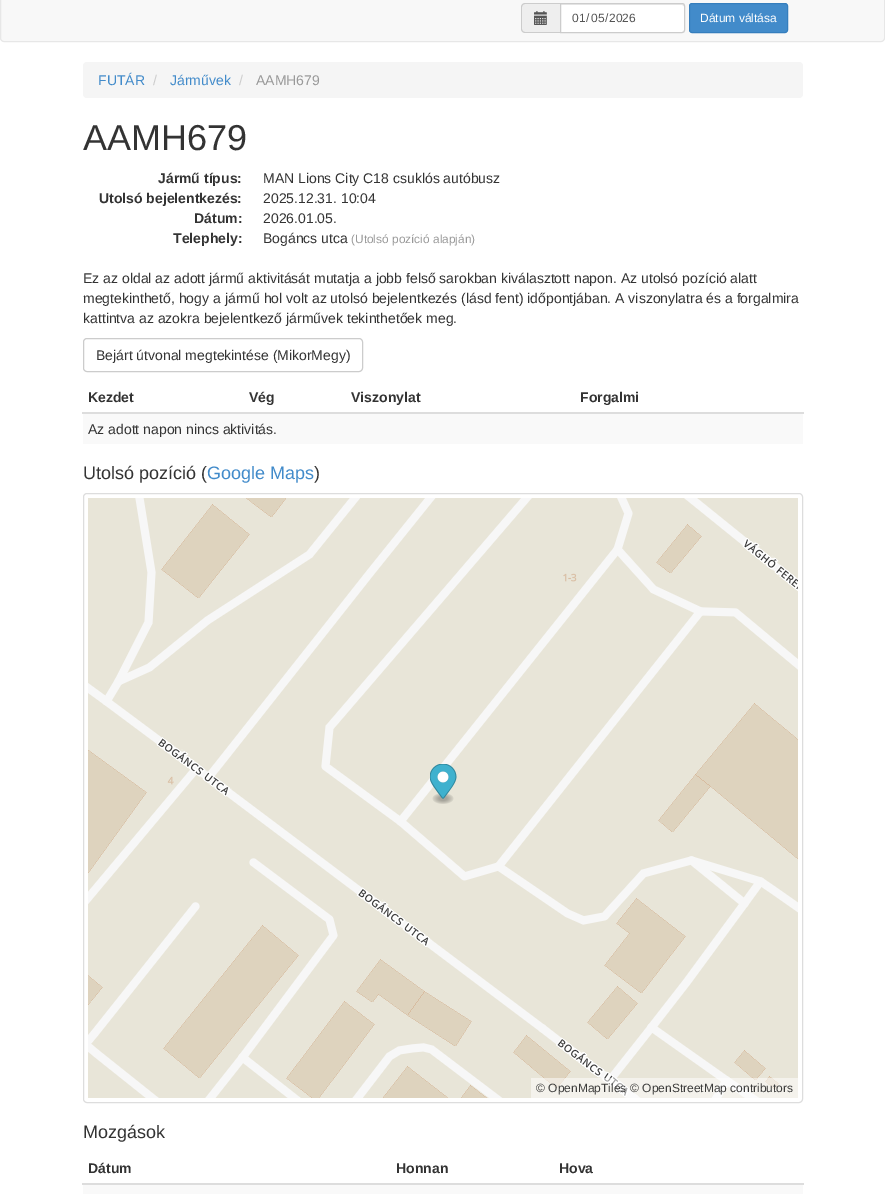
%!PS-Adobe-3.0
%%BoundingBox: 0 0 885 1194
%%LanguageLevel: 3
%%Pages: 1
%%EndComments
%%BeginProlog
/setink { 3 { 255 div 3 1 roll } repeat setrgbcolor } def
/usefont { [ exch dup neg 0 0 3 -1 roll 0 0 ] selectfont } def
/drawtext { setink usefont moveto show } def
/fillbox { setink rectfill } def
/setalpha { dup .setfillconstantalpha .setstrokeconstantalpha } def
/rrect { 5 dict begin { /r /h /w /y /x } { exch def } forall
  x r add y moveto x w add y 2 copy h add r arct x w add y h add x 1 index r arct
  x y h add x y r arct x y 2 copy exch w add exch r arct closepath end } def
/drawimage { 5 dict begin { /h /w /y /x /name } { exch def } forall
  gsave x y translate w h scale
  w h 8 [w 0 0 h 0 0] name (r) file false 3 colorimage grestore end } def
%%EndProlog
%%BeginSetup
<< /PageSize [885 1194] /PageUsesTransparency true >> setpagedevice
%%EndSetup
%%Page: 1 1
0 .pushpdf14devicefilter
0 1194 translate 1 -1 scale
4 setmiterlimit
0 0 885 1194 255 255 255 fillbox
248 248 248 setink
0.5 -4.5 884 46 3.5 rrect gsave fill grestore
231 231 231 setink
stroke
238 238 238 setink
525 3 moveto 560 3 lineto 560 33 lineto 525 33 lineto 523 33 521 31 521 29 curveto 521 7 lineto 521 5 523 3 525 3 curveto closepath fill
204 204 204 setink
525 3 moveto 560 3 lineto 560 33 lineto 525 33 lineto 523 33 521 31 521 29 curveto 521 7 lineto 521 5 523 3 525 3 curveto closepath 525 4 moveto 560 4 lineto 560 32 lineto 525 32 lineto 523.5 32 522 30.5 522 29 curveto 522 7 lineto 522 5.5 523.5 4 525 4 curveto closepath eofill
(assets/img1.rgb) 534 11 13 14 drawimage
255 255 255 setink
560 3 moveto 682 3 lineto 683.5 3 685 4.5 685 6 curveto 685 30 lineto 685 31.5 683.5 33 682 33 curveto 560 33 lineto closepath fill
236 236 236 setink
561 5 moveto 682 5 lineto 684 6 lineto 684 7 lineto 684 6 684 4 682 4 curveto 561 4 lineto closepath fill
204 204 204 setink
560.5 3.5 moveto 682 3.5 lineto 683.5 3.5 684.5 4.5 684.5 6 curveto 684.5 30 lineto 684.5 31.5 683.5 32.5 682 32.5 curveto 560.5 32.5 lineto closepath stroke
(01) 572 22 /LiberationSans-Regular 12 85 85 85 drawtext
(/) 586 22 /LiberationSans-Regular 12 85 85 85 drawtext
(05) 591 22 /LiberationSans-Regular 12 85 85 85 drawtext
(/) 605 22 /LiberationSans-Regular 12 85 85 85 drawtext
(2026) 609 22 /LiberationSans-Regular 12 85 85 85 drawtext
66 139 202 setink
689.5 3.5 98 29 2.5 rrect gsave fill grestore
53 126 189 setink
stroke
(Dátum váltása) 700 22 /LiberationSans-Regular 12 255 255 255 drawtext
245 245 245 setink
83 62 720 36 4 rrect fill
(FUTÁR) 98 85 /LiberationSans-Regular 14 66 139 202 drawtext
(/) 153 85 /LiberationSans-Regular 14 204 204 204 drawtext
(Járművek) 170 85 /LiberationSans-Regular 14 66 139 202 drawtext
(/) 239 85 /LiberationSans-Regular 14 204 204 204 drawtext
(AAMH679) 256 85 /LiberationSans-Regular 14 153 153 153 drawtext
(AAMH679) 83 150 /LiberationSans-Regular 36 51 51 51 drawtext
(Jármű típus:) 158 183 /LiberationSans-Bold 14 51 51 51 drawtext
(MAN Lions City C18 csuklós autóbusz) 263 183 /LiberationSans-Regular 14 51 51 51 drawtext
(Utolsó bejelentkezés:) 99 203 /LiberationSans-Bold 14 51 51 51 drawtext
(2025.12.31. 10:04) 263 203 /LiberationSans-Regular 14 51 51 51 drawtext
(Dátum:) 194 223 /LiberationSans-Bold 14 51 51 51 drawtext
(2026.01.05.) 263 223 /LiberationSans-Regular 14 51 51 51 drawtext
(Telephely:) 173 243 /LiberationSans-Bold 14 51 51 51 drawtext
(Bogáncs utca) 263 243 /LiberationSans-Regular 14 51 51 51 drawtext
(\(Utolsó pozíció alapján\)) 351 243 /LiberationSans-Regular 11.9 153 153 153 drawtext
(Ez az oldal az adott jármű aktivitását mutatja a jobb felső sarokban kiválasztott napon. Az utolsó pozíció alatt) 83 283 /LiberationSans-Regular 14 51 51 51 drawtext
(megtekinthető, hogy a jármű hol volt az utolsó bejelentkezés \(lásd fent\) időpontjában. A viszonylatra és a forgalmira) 83 303 /LiberationSans-Regular 14 51 51 51 drawtext
(kattintva az azokra bejelentkező járművek tekinthetőek meg.) 83 323 /LiberationSans-Regular 14 51 51 51 drawtext
204 204 204 setink
83.5 338.5 279 33 3.5 rrect stroke
(Bejárt útvonal megtekintése \(MikorMegy\)) 96 360 /LiberationSans-Regular 14 51 51 51 drawtext
(Kezdet) 88 402 /LiberationSans-Bold 14 51 51 51 drawtext
(Vég) 249 402 /LiberationSans-Bold 14 51 51 51 drawtext
(Viszonylat) 351 402 /LiberationSans-Bold 14 51 51 51 drawtext
(Forgalmi) 580 402 /LiberationSans-Bold 14 51 51 51 drawtext
82 412 722 2 221 221 221 fillbox
83 414 720 30 249 249 249 fillbox
(Az adott napon nincs aktivitás.) 88 434 /LiberationSans-Regular 14 51 51 51 drawtext
(Utolsó pozíció \() 83 479 /LiberationSans-Regular 18 51 51 51 drawtext
(Google Maps) 207 479 /LiberationSans-Regular 18 66 139 202 drawtext
(\)) 314 479 /LiberationSans-Regular 18 51 51 51 drawtext
221 221 221 setink
83.5 493.5 719 609 3.5 rrect stroke
(assets/img2.rgb) 88 498 710 600 drawimage
(assets/img3.rgb) 430 764 27 40 drawimage
0.5 setalpha
531 1078 267 20 255 255 255 fillbox
1 setalpha
(© OpenMapTiles) 536 1092 /LiberationSans-Regular 12 60 60 59 drawtext
(© OpenStreetMap contributors) 630 1092 /LiberationSans-Regular 12 60 60 59 drawtext
(Mozgások) 83 1138 /LiberationSans-Regular 18 51 51 51 drawtext
(Dátum) 88 1173 /LiberationSans-Bold 14 51 51 51 drawtext
(Honnan) 396 1173 /LiberationSans-Bold 14 51 51 51 drawtext
82 1183 722 2 221 221 221 fillbox
(Hova) 559 1173 /LiberationSans-Bold 14 51 51 51 drawtext
83 1185 720 9 249 249 249 fillbox
.poppdf14devicefilter showpage
%%EOF
